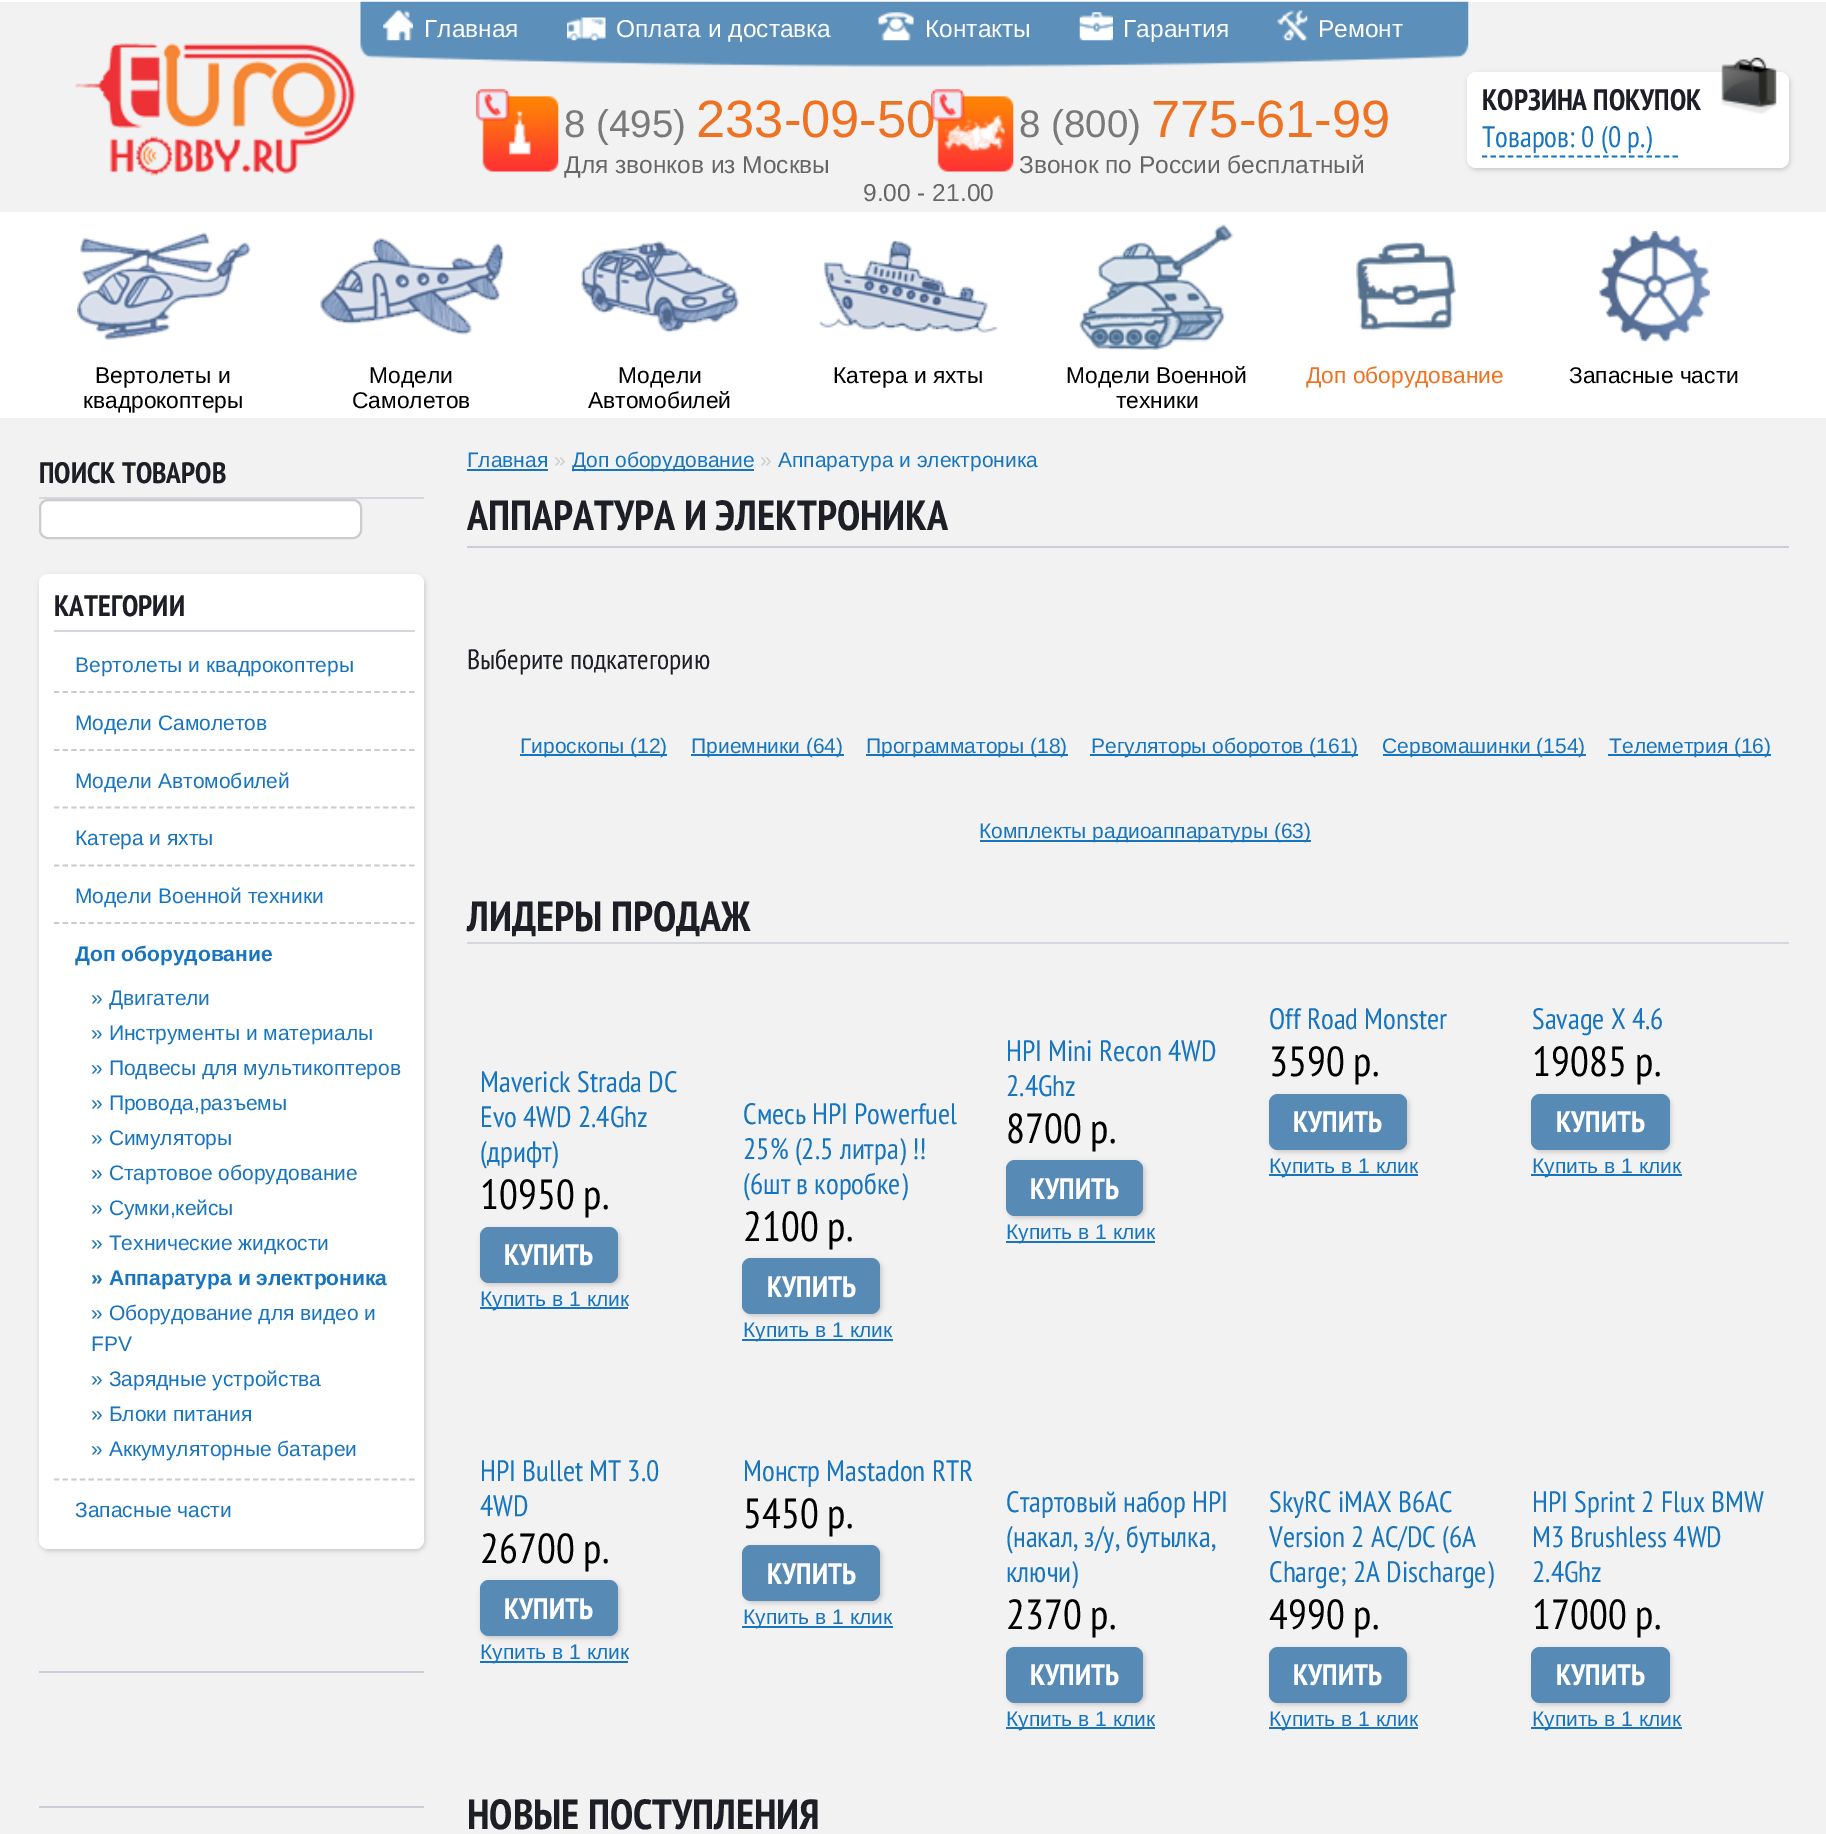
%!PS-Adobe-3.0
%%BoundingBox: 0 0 1826 1834
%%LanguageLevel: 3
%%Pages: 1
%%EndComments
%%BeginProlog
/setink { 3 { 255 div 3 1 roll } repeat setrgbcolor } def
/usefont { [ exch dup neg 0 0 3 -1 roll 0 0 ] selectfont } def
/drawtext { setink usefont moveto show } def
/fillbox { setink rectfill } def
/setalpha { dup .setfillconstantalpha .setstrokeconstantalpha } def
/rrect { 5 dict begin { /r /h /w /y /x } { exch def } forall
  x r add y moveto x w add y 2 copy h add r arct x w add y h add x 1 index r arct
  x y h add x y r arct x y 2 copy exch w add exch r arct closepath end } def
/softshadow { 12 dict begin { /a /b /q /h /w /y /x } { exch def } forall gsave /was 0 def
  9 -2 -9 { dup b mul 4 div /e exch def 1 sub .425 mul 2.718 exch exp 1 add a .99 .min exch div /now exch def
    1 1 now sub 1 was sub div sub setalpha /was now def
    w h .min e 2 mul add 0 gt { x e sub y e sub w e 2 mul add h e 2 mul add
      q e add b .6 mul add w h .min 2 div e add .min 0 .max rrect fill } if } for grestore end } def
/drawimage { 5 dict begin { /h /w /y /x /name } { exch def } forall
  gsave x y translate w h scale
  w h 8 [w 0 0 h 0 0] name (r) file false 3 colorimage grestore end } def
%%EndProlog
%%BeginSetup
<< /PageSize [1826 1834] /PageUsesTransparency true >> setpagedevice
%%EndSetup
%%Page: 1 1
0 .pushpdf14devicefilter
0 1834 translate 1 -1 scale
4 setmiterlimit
0 0 1826 1834 242 242 242 fillbox
0 0 1826 2 255 255 255 fillbox
(assets/img1.rgb) 360 1 1109 66 drawimage
(assets/img2.rgb) 383 10 30 31 drawimage
(Главная) 424 37 /LiberationSans-Regular 24.5 255 255 255 drawtext
(assets/img3.rgb) 567 17 39 24 drawimage
(Оплата и доставка) 616 37 /LiberationSans-Regular 24.5 255 255 255 drawtext
(assets/img4.rgb) 878 12 36 29 drawimage
(Контакты) 925 37 /LiberationSans-Regular 24.5 255 255 255 drawtext
(assets/img5.rgb) 1079 12 34 29 drawimage
(Гарантия) 1123 37 /LiberationSans-Regular 24.5 255 255 255 drawtext
(assets/img6.rgb) 1277 10 31 31 drawimage
(Ремонт) 1318 37 /LiberationSans-Regular 24.5 255 255 255 drawtext
(assets/img7.rgb) 75 43 281 133 drawimage
(assets/img8.rgb) 476 89 83 83 drawimage
(8 \(495\)) 564 137 /LiberationSans-Regular 38.5 121 121 121 drawtext
(233-09-50) 696 137 /LiberationSans-Regular 52.5 239 114 34 drawtext
(Для звонков из Москвы) 564 173 /LiberationSans-Regular 24.5 102 102 102 drawtext
(assets/img9.rgb) 931 89 83 83 drawimage
(8 \(800\)) 1019 137 /LiberationSans-Regular 38.5 121 121 121 drawtext
(775-61-99) 1151 137 /LiberationSans-Regular 52.5 239 114 34 drawtext
(Звонок по России бесплатный) 1019 173 /LiberationSans-Regular 24.5 102 102 102 drawtext
201 199 199 setink
1468 74 322 96 9 2.5 1 softshadow
255 255 255 setink
1467 72 322 96 9 rrect fill
(КОРЗИНА ПОКУПОК) 1482 110 /PTSansNarrow-Bold 29.5 29 30 38 drawtext
(Товаров: 0 \(0 р.\)) 1482 147 /PTSansNarrow-Regular 29.5 23 116 191 drawtext
1.8 setlinewidth
[5.25 3.41] 0 setdash
1482 156.5 moveto 1678 156.5 lineto stroke
(assets/img10.rgb) 1721 57 56 57 drawimage
(9.00 - 21.00) 863 201 /LiberationSans-Regular 24.5 102 102 102 drawtext
0 212 1826 206 255 255 255 fillbox
(assets/img11.rgb) 77 232 174 108 drawimage
(Вертолеты и) 95 383 /LiberationSans-Regular 22.75 0 0 0 drawtext
(квадрокоптеры) 83 408 /LiberationSans-Regular 22.75 0 0 0 drawtext
(assets/img12.rgb) 320 238 184 97 drawimage
(Модели) 369 383 /LiberationSans-Regular 22.75 0 0 0 drawtext
(Самолетов) 352 408 /LiberationSans-Regular 22.75 0 0 0 drawtext
(assets/img13.rgb) 581 241 158 92 drawimage
(Модели) 618 383 /LiberationSans-Regular 22.75 0 0 0 drawtext
(Автомобилей) 588 408 /LiberationSans-Regular 22.75 0 0 0 drawtext
(assets/img14.rgb) 819 239 179 94 drawimage
(Катера и яхты) 833 383 /LiberationSans-Regular 22.75 0 0 0 drawtext
(assets/img15.rgb) 1079 224 155 126 drawimage
(Модели Военной) 1066 383 /LiberationSans-Regular 22.75 0 0 0 drawtext
(техники) 1116 408 /LiberationSans-Regular 22.75 0 0 0 drawtext
(assets/img16.rgb) 1356 241 100 90 drawimage
(Доп оборудование) 1306 383 /LiberationSans-Regular 22.75 239 114 34 drawtext
(assets/img17.rgb) 1599 231 111 111 drawimage
(Запасные части) 1569 383 /LiberationSans-Regular 22.75 0 0 0 drawtext
39 497 385 2 213 215 223 fillbox
(ПОИСК ТОВАРОВ) 39 483 /PTSansNarrow-Bold 29.5 29 30 38 drawtext
255 255 255 setink
40 500 321 38 8 rrect gsave fill grestore
204 204 204 setink
2 setlinewidth
[] 0 setdash
stroke
201 199 199 setink
40 576 385 975 9 2.5 1 softshadow
255 255 255 setink
39 574 385 975 9 rrect fill
54 630 361 2 213 215 223 fillbox
(КАТЕГОРИИ) 54 616 /PTSansNarrow-Bold 29.5 29 30 38 drawtext
(Вертолеты и квадрокоптеры) 75 672 /LiberationSans-Regular 21 23 116 191 drawtext
204 204 204 setink
1.8 setlinewidth
[5.25 3.41] 0 setdash
54 692 moveto 415 692 lineto stroke
(Модели Самолетов) 75 730 /LiberationSans-Regular 21 23 116 191 drawtext
204 204 204 setink
54 750 moveto 415 750 lineto stroke
(Модели Автомобилей) 75 788 /LiberationSans-Regular 21 23 116 191 drawtext
204 204 204 setink
54 807.5 moveto 415 807.5 lineto stroke
(Катера и яхты) 75 845 /LiberationSans-Regular 21 23 116 191 drawtext
204 204 204 setink
54 865.5 moveto 415 865.5 lineto stroke
(Модели Военной техники) 75 903 /LiberationSans-Regular 21 23 116 191 drawtext
204 204 204 setink
54 923 moveto 415 923 lineto stroke
(Доп оборудование) 75 961 /LiberationSans-Bold 21 23 116 191 drawtext
(» Двигатели) 91 1005 /LiberationSans-Regular 21 23 116 191 drawtext
(» Инструменты и материалы) 91 1040 /LiberationSans-Regular 21 23 116 191 drawtext
(» Подвесы для мультикоптеров) 91 1075 /LiberationSans-Regular 21 23 116 191 drawtext
(» Провода,разъемы) 91 1110 /LiberationSans-Regular 21 23 116 191 drawtext
(» Симуляторы) 91 1145 /LiberationSans-Regular 21 23 116 191 drawtext
(» Стартовое оборудование) 91 1180 /LiberationSans-Regular 21 23 116 191 drawtext
(» Сумки,кейсы) 91 1215 /LiberationSans-Regular 21 23 116 191 drawtext
(» Технические жидкости) 91 1250 /LiberationSans-Regular 21 23 116 191 drawtext
(» Аппаратура и электроника) 91 1285 /LiberationSans-Bold 21 23 116 191 drawtext
(» Оборудование для видео и) 91 1320 /LiberationSans-Regular 21 23 116 191 drawtext
(FPV) 91 1351 /LiberationSans-Regular 21 23 116 191 drawtext
(» Зарядные устройства) 91 1386 /LiberationSans-Regular 21 23 116 191 drawtext
(» Блоки питания) 91 1421 /LiberationSans-Regular 21 23 116 191 drawtext
(» Аккумуляторные батареи) 91 1456 /LiberationSans-Regular 21 23 116 191 drawtext
204 204 204 setink
54 1479.5 moveto 415 1479.5 lineto stroke
(Запасные части) 75 1517 /LiberationSans-Regular 21 23 116 191 drawtext
39 1671 385 2 202 205 215 fillbox
39 1806 385 2 202 205 215 fillbox
(Главная) 467 467 /LiberationSans-Regular 21 23 116 191 drawtext
467 469 81 2 23 116 191 fillbox
(») 554 467 /LiberationSans-Regular 21 204 204 204 drawtext
572 469 182 2 23 116 191 fillbox
(Доп оборудование) 572 467 /LiberationSans-Regular 21 23 116 191 drawtext
(») 760 467 /LiberationSans-Regular 21 204 204 204 drawtext
(Аппаратура и электроника) 778 467 /LiberationSans-Regular 21 23 116 191 drawtext
467 546 1322 2 202 205 215 fillbox
(АППАРАТУРА И ЭЛЕКТРОНИКА) 467 530 /PTSansNarrow-Bold 42 29 30 38 drawtext
(Выберите подкатегорию) 467 669 /PTSansNarrow-Regular 28 29 30 38 drawtext
520 754 147 2 23 116 191 fillbox
(Гироскопы \(12\)) 520 753 /LiberationSans-Regular 21 23 116 191 drawtext
691 754 153 2 23 116 191 fillbox
(Приемники \(64\)) 691 753 /LiberationSans-Regular 21 23 116 191 drawtext
866 754 202 2 23 116 191 fillbox
(Программаторы \(18\)) 866 753 /LiberationSans-Regular 21 23 116 191 drawtext
1090 754 268 2 23 116 191 fillbox
(Регуляторы оборотов \(161\)) 1091 753 /LiberationSans-Regular 21 23 116 191 drawtext
1383 754 203 2 23 116 191 fillbox
(Сервомашинки \(154\)) 1382 753 /LiberationSans-Regular 21 23 116 191 drawtext
1608 754 163 2 23 116 191 fillbox
(Телеметрия \(16\)) 1609 753 /LiberationSans-Regular 21 23 116 191 drawtext
980 840 331 2 23 116 191 fillbox
(Комплекты радиоаппаратуры \(63\)) 979 838 /LiberationSans-Regular 21 23 116 191 drawtext
467 942 1322 2 213 215 223 fillbox
(ЛИДЕРЫ ПРОДАЖ) 467 931 /PTSansNarrow-Bold 42 29 30 38 drawtext
(Maverick Strada DC) 480 1092 /PTSansNarrow-Regular 29.5 23 116 191 drawtext
(Evo 4WD 2.4Ghz) 480 1127 /PTSansNarrow-Regular 29.5 23 116 191 drawtext
(\(дрифт\)) 480 1162 /PTSansNarrow-Regular 29.5 23 116 191 drawtext
(10950 р.) 480 1209 /PTSansNarrow-Regular 42 0 0 0 drawtext
201 199 199 setink
481 1229 139 56 9 2.5 1 softshadow
87 139 182 setink
480 1227 138 56 9 rrect fill
(КУПИТЬ) 504 1265 /PTSansNarrow-Bold 29.5 255 255 255 drawtext
480 1307 148 2 23 116 191 fillbox
(Купить в 1 клик) 480 1306 /LiberationSans-Regular 21 23 116 191 drawtext
(Смесь HPI Powerfuel) 743 1124 /PTSansNarrow-Regular 29.5 23 116 191 drawtext
(25% \(2.5 литра\) !!) 743 1159 /PTSansNarrow-Regular 29.5 23 116 191 drawtext
(\(6шт в коробке\)) 743 1194 /PTSansNarrow-Regular 29.5 23 116 191 drawtext
(2100 р.) 743 1241 /PTSansNarrow-Regular 42 0 0 0 drawtext
201 199 199 setink
744 1260 138 56 9 2.5 1 softshadow
87 139 182 setink
742 1258 138 56 9 rrect fill
(КУПИТЬ) 767 1297 /PTSansNarrow-Bold 29.5 255 255 255 drawtext
742 1339 151 2 23 116 191 fillbox
(Купить в 1 клик) 743 1337 /LiberationSans-Regular 21 23 116 191 drawtext
(HPI Mini Recon 4WD) 1006 1061 /PTSansNarrow-Regular 29.5 23 116 191 drawtext
(2.4Ghz) 1006 1096 /PTSansNarrow-Regular 29.5 23 116 191 drawtext
(8700 р.) 1006 1143 /PTSansNarrow-Regular 42 0 0 0 drawtext
201 199 199 setink
1008 1162 137 56 9 2.5 1 softshadow
87 139 182 setink
1006 1160 137 56 9 rrect fill
(КУПИТЬ) 1030 1199 /PTSansNarrow-Bold 29.5 255 255 255 drawtext
1006 1241 149 2 23 116 191 fillbox
(Купить в 1 клик) 1006 1239 /LiberationSans-Regular 21 23 116 191 drawtext
(Off Road Monster) 1269 1029 /PTSansNarrow-Regular 29.5 23 116 191 drawtext
(3590 р.) 1269 1076 /PTSansNarrow-Regular 42 0 0 0 drawtext
201 199 199 setink
1271 1096 138 56 9 2.5 1 softshadow
87 139 182 setink
1269 1094 138 56 9 rrect fill
(КУПИТЬ) 1293 1132 /PTSansNarrow-Bold 29.5 255 255 255 drawtext
1269 1174 149 2 23 116 191 fillbox
(Купить в 1 клик) 1269 1173 /LiberationSans-Regular 21 23 116 191 drawtext
(Savage X 4.6) 1532 1029 /PTSansNarrow-Regular 29.5 23 116 191 drawtext
(19085 р.) 1532 1076 /PTSansNarrow-Regular 42 0 0 0 drawtext
201 199 199 setink
1533 1096 138 56 9 2.5 1 softshadow
87 139 182 setink
1531 1094 139 56 9 rrect fill
(КУПИТЬ) 1556 1132 /PTSansNarrow-Bold 29.5 255 255 255 drawtext
1531 1174 151 2 23 116 191 fillbox
(Купить в 1 клик) 1532 1173 /LiberationSans-Regular 21 23 116 191 drawtext
(HPI Bullet MT 3.0) 480 1481 /PTSansNarrow-Regular 29.5 23 116 191 drawtext
(4WD) 480 1516 /PTSansNarrow-Regular 29.5 23 116 191 drawtext
(26700 р.) 480 1563 /PTSansNarrow-Regular 42 0 0 0 drawtext
201 199 199 setink
481 1582 139 56 9 2.5 1 softshadow
87 139 182 setink
480 1580 138 56 9 rrect fill
(КУПИТЬ) 504 1619 /PTSansNarrow-Bold 29.5 255 255 255 drawtext
480 1661 148 2 23 116 191 fillbox
(Купить в 1 клик) 480 1659 /LiberationSans-Regular 21 23 116 191 drawtext
(Монстр Mastadon RTR) 743 1481 /PTSansNarrow-Regular 29.5 23 116 191 drawtext
(5450 р.) 743 1528 /PTSansNarrow-Regular 42 0 0 0 drawtext
201 199 199 setink
744 1547 138 56 9 2.5 1 softshadow
87 139 182 setink
742 1545 138 56 9 rrect fill
(КУПИТЬ) 767 1584 /PTSansNarrow-Bold 29.5 255 255 255 drawtext
742 1626 151 2 23 116 191 fillbox
(Купить в 1 клик) 743 1624 /LiberationSans-Regular 21 23 116 191 drawtext
(Стартовый набор HPI) 1006 1512 /PTSansNarrow-Regular 29.5 23 116 191 drawtext
(\(накал, з/у, бутылка,) 1006 1547 /PTSansNarrow-Regular 29.5 23 116 191 drawtext
(ключи\)) 1006 1582 /PTSansNarrow-Regular 29.5 23 116 191 drawtext
(2370 р.) 1006 1629 /PTSansNarrow-Regular 42 0 0 0 drawtext
201 199 199 setink
1008 1649 137 56 9 2.5 1 softshadow
87 139 182 setink
1006 1647 137 56 9 rrect fill
(КУПИТЬ) 1030 1685 /PTSansNarrow-Bold 29.5 255 255 255 drawtext
1006 1727 149 2 23 116 191 fillbox
(Купить в 1 клик) 1006 1726 /LiberationSans-Regular 21 23 116 191 drawtext
(SkyRC iMAX B6AC) 1269 1512 /PTSansNarrow-Regular 29.5 23 116 191 drawtext
(Version 2 AC/DC \(6A) 1269 1547 /PTSansNarrow-Regular 29.5 23 116 191 drawtext
(Charge; 2A Discharge\)) 1269 1582 /PTSansNarrow-Regular 29.5 23 116 191 drawtext
(4990 р.) 1269 1629 /PTSansNarrow-Regular 42 0 0 0 drawtext
201 199 199 setink
1271 1649 138 56 9 2.5 1 softshadow
87 139 182 setink
1269 1647 138 56 9 rrect fill
(КУПИТЬ) 1293 1685 /PTSansNarrow-Bold 29.5 255 255 255 drawtext
1269 1727 149 2 23 116 191 fillbox
(Купить в 1 клик) 1269 1726 /LiberationSans-Regular 21 23 116 191 drawtext
(HPI Sprint 2 Flux BMW) 1532 1512 /PTSansNarrow-Regular 29.5 23 116 191 drawtext
(M3 Brushless 4WD) 1532 1547 /PTSansNarrow-Regular 29.5 23 116 191 drawtext
(2.4Ghz) 1532 1582 /PTSansNarrow-Regular 29.5 23 116 191 drawtext
(17000 р.) 1532 1629 /PTSansNarrow-Regular 42 0 0 0 drawtext
201 199 199 setink
1533 1649 138 56 9 2.5 1 softshadow
87 139 182 setink
1531 1647 139 56 9 rrect fill
(КУПИТЬ) 1556 1685 /PTSansNarrow-Bold 29.5 255 255 255 drawtext
1531 1727 151 2 23 116 191 fillbox
(Купить в 1 клик) 1532 1726 /LiberationSans-Regular 21 23 116 191 drawtext
(НОВЫЕ ПОСТУПЛЕНИЯ) 467 1829 /PTSansNarrow-Bold 42 29 30 38 drawtext
.poppdf14devicefilter showpage
%%EOF
